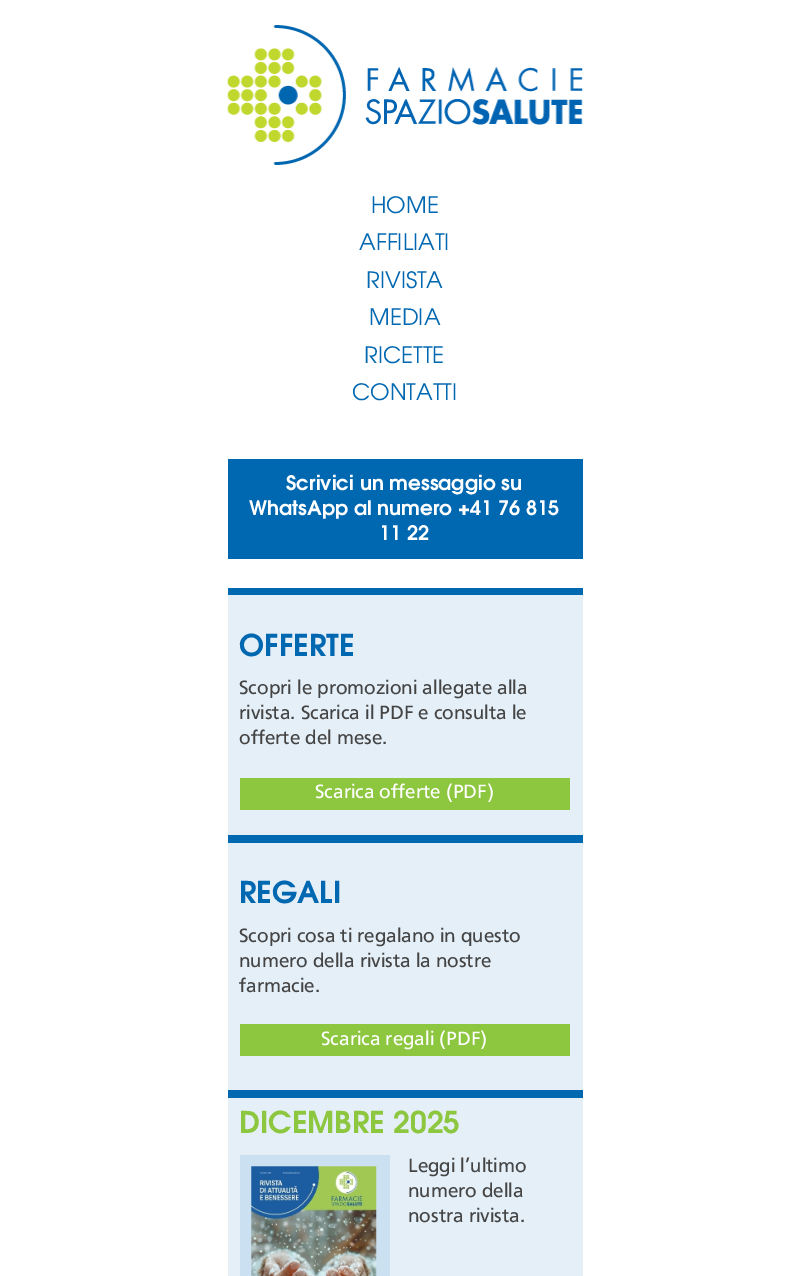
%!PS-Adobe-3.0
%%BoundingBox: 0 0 808 1276
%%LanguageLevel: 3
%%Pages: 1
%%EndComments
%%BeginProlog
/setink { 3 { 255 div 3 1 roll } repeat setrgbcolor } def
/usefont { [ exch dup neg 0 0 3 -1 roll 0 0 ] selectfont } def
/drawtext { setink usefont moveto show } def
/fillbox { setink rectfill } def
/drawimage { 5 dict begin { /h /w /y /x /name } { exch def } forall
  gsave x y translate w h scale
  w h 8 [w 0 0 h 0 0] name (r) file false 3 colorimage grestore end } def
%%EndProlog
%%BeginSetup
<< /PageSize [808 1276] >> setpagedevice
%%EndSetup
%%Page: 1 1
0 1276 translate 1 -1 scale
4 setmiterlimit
0 0 808 1276 255 255 255 fillbox
(assets/img1.rgb) 227 25 356 140 drawimage
(HOME) 371 213 /TeXGyreAdventor-Regular 22.5 0 103 177 drawtext
(AFFILIATI) 359 250 /TeXGyreAdventor-Regular 22.5 0 103 177 drawtext
(RIVISTA) 366 288 /TeXGyreAdventor-Regular 22.5 0 103 177 drawtext
(MEDIA) 369 325 /TeXGyreAdventor-Regular 22.5 0 103 177 drawtext
(RICETTE) 364 363 /TeXGyreAdventor-Regular 22.5 0 103 177 drawtext
(CONTATTI) 352 400 /TeXGyreAdventor-Regular 22.5 0 103 177 drawtext
228 459 355 100 0 103 177 fillbox
(Scrivici un messaggio su) 286 490 /TeXGyreAdventor-Bold 20 255 255 255 drawtext
(WhatsApp al numero +41 76 815) 249 515 /TeXGyreAdventor-Bold 20 255 255 255 drawtext
(11 22) 379 540 /TeXGyreAdventor-Bold 20 255 255 255 drawtext
228 595 355 681 229 239 247 fillbox
228 588 355 7 0 103 177 fillbox
(OFFERTE) 239 656 /TeXGyreAdventor-Bold 30 0 103 177 drawtext
(Scopri le promozioni allegate alla) 239 694 /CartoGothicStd-Regular 20 68 68 68 drawtext
(rivista. Scarica il PDF e consulta le) 239 719 /CartoGothicStd-Regular 20 68 68 68 drawtext
(offerte del mese.) 239 744 /CartoGothicStd-Regular 20 68 68 68 drawtext
240 778 330 32 141 198 63 fillbox
(Scarica offerte \(PDF\)) 315 798 /CartoGothicStd-Regular 20 255 255 255 drawtext
228 835 355 8 0 103 177 fillbox
(REGALI) 239 903 /TeXGyreAdventor-Bold 30 0 103 177 drawtext
(Scopri cosa ti regalano in questo) 239 942 /CartoGothicStd-Regular 20 68 68 68 drawtext
(numero della rivista la nostre) 239 967 /CartoGothicStd-Regular 20 68 68 68 drawtext
(farmacie.) 239 992 /CartoGothicStd-Regular 20 68 68 68 drawtext
240 1024 330 32 141 198 63 fillbox
(Scarica regali \(PDF\)) 321 1045 /CartoGothicStd-Regular 20 255 255 255 drawtext
228 1090 355 8 0 103 177 fillbox
(DICEMBRE 2025) 239 1133 /TeXGyreAdventor-Bold 30 141 198 63 drawtext
240 1155 150 121 203 224 240 fillbox
(assets/img2.rgb) 251 1166 126 110 drawimage
(Leggi l’ultimo) 408 1172 /CartoGothicStd-Regular 20 68 68 68 drawtext
(numero della) 408 1197 /CartoGothicStd-Regular 20 68 68 68 drawtext
(nostra rivista.) 408 1222 /CartoGothicStd-Regular 20 68 68 68 drawtext
showpage
%%EOF
